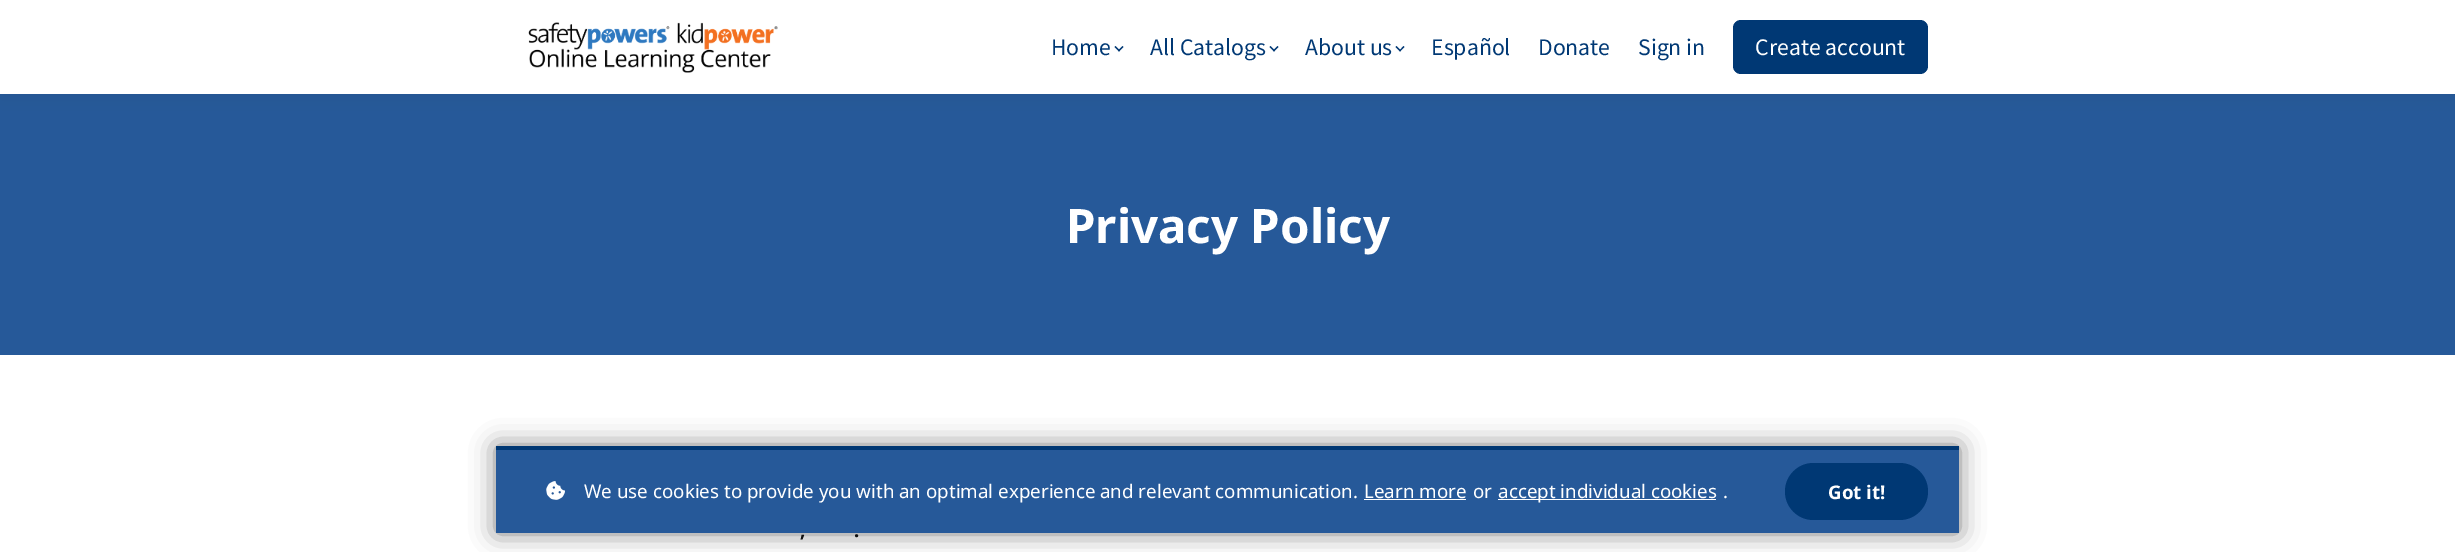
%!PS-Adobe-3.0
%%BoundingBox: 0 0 2455 552
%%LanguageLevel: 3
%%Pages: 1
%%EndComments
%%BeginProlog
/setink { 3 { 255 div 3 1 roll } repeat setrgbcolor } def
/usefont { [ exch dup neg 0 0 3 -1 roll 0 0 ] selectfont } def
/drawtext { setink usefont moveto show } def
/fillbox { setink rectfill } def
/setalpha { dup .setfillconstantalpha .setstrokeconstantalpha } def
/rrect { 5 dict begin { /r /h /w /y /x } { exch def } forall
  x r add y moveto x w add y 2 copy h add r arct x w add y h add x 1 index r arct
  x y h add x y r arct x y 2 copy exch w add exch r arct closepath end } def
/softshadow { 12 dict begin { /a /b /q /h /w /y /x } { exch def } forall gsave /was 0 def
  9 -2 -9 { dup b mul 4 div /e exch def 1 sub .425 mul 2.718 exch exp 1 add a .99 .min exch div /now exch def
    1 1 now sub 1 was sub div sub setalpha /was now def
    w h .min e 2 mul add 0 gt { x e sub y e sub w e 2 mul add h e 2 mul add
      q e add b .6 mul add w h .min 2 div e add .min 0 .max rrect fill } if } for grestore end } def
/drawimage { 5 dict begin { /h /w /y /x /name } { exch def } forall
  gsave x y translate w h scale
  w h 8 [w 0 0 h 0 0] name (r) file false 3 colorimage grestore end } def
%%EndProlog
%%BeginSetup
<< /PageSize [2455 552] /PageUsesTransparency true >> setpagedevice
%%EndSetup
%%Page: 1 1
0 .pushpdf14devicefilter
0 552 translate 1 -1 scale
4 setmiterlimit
0 0 2455 552 255 255 255 fillbox
0 94 2455 261 38 89 153 fillbox
0 0 0 setink
0 0 2455 94 0 9.5 0.05 softshadow
0 0 2455 94 255 255 255 fillbox
(assets/img1.rgb) 528 22 250 51 drawimage
(Home) 1051 55 /NotoSansJP-Regular 21.25 0 56 116 drawtext
1123.5 47 moveto 1119 51.5 lineto 1118 50.5 lineto 1122.5 46 lineto closepath fill
1120 50.5 moveto 1119 51.5 lineto 1114.5 47 lineto 1115.5 46 lineto closepath fill
(All Catalogs) 1150 55 /NotoSansJP-Regular 21.25 0 56 116 drawtext
1278.5 47 moveto 1274 51.5 lineto 1273 50.5 lineto 1277.5 46 lineto closepath fill
1275 50.5 moveto 1274 51.5 lineto 1269.5 47 lineto 1270.5 46 lineto closepath fill
(About us) 1305 55 /NotoSansJP-Regular 21.25 0 56 116 drawtext
1404.5 47 moveto 1400 51.5 lineto 1399.5 50.5 lineto 1403.5 46 lineto closepath fill
1401 50.5 moveto 1400 51.5 lineto 1395.5 47 lineto 1396.5 46 lineto closepath fill
(Español) 1431 55 /NotoSansJP-Regular 21.25 0 56 116 drawtext
(Donate) 1538 55 /NotoSansJP-Regular 21.25 0 56 116 drawtext
(Sign in) 1638 55 /NotoSansJP-Regular 21.25 0 56 116 drawtext
1733 20 195 54 8 rrect fill
(Create account) 1755 55 /NotoSansJP-Regular 21.25 255 255 255 drawtext
(Privacy Policy) 1066 243 /NotoSans-Bold 47.5 255 255 255 drawtext
(,) 800 537 /NotoSans-Bold 18.75 20 20 20 drawtext
(.) 854 537 /NotoSans-Bold 18.75 20 20 20 drawtext
0 0 0 setink
496 446 1463 87 0 12.5 0.5 softshadow
496 450 1463 83 38 89 153 fillbox
496 446 1463 4 0 56 116 fillbox
(assets/img2.rgb) 546 481 19 19 drawimage
(We use cookies to provide you with an optimal experience and relevant communication.) 584 498 /NotoSans-Regular 18.75 255 255 255 drawtext
(Learn more) 1364 498 /NotoSans-Regular 18.75 255 255 255 drawtext
1364 499 102 1 255 255 255 fillbox
(or) 1473 498 /NotoSans-Regular 18.75 255 255 255 drawtext
1498 499 218 1 255 255 255 fillbox
(accept individual cookies) 1498 498 /NotoSans-Regular 18.75 255 255 255 drawtext
(.) 1723 498 /NotoSans-Regular 18.75 255 255 255 drawtext
0 56 116 setink
1785 463 143 57 28.5 rrect fill
(Got it!) 1828 499 /NotoSans-Bold 18.75 255 255 255 drawtext
.poppdf14devicefilter showpage
%%EOF
